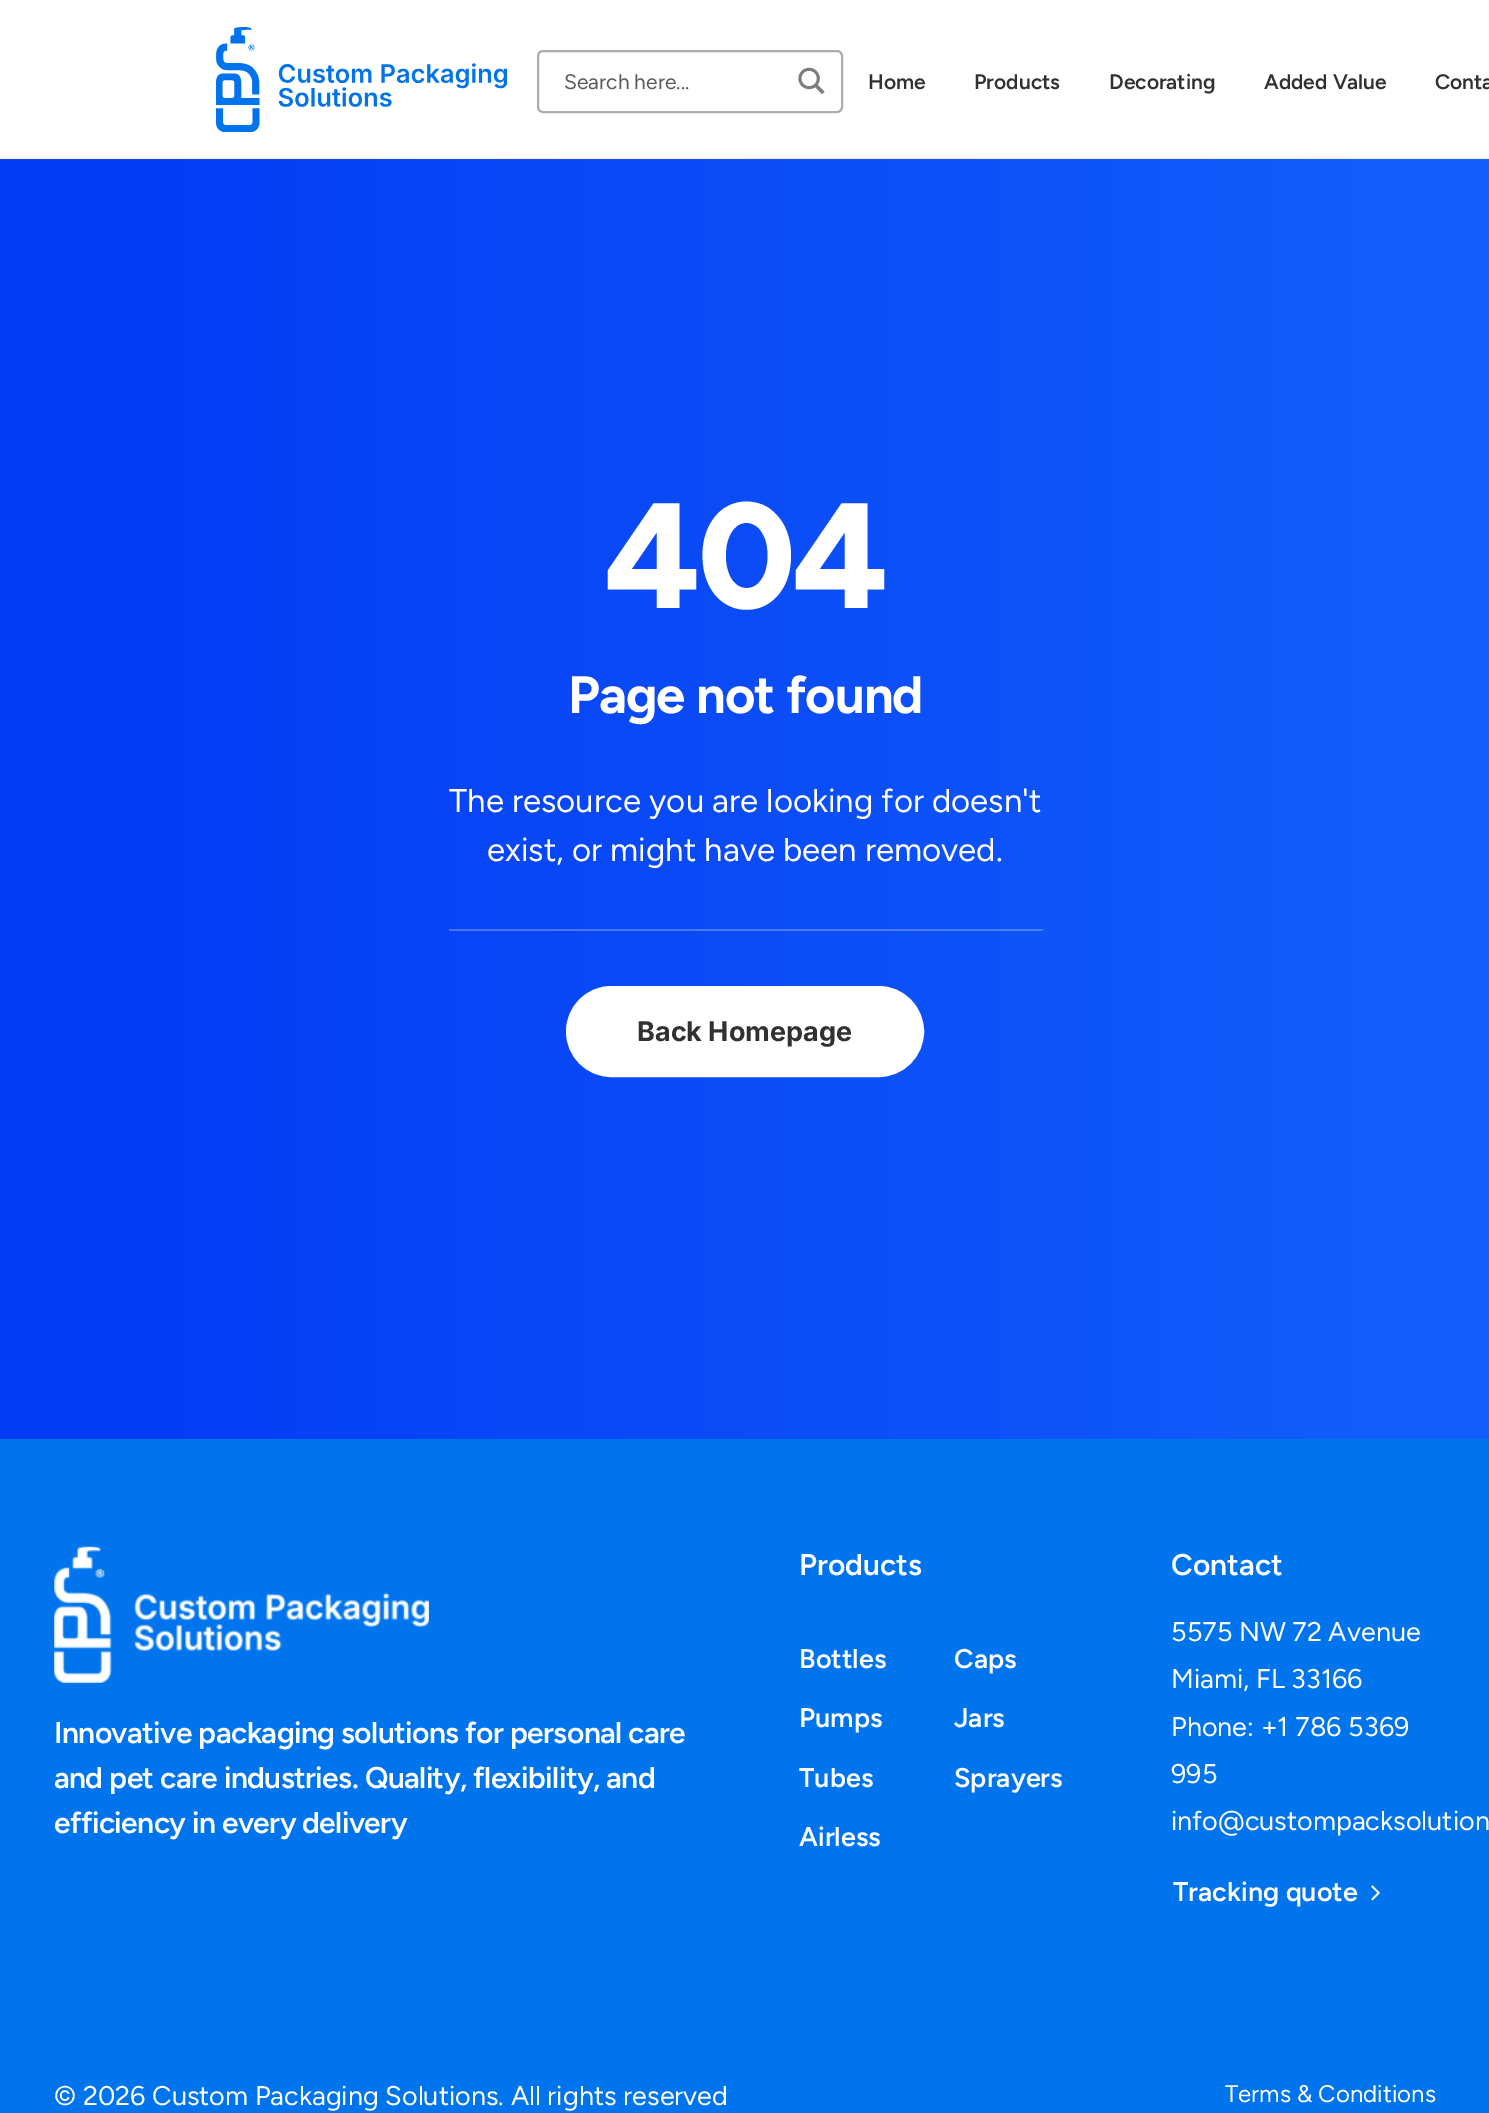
%!PS-Adobe-3.0
%%BoundingBox: 0 0 1489 2113
%%LanguageLevel: 3
%%Pages: 1
%%EndComments
%%BeginProlog
/setink { 3 { 255 div 3 1 roll } repeat setrgbcolor } def
/usefont { [ exch dup neg 0 0 3 -1 roll 0 0 ] selectfont } def
/drawtext { setink usefont moveto show } def
/fillbox { setink rectfill } def
/setalpha { dup .setfillconstantalpha .setstrokeconstantalpha } def
/rrect { 5 dict begin { /r /h /w /y /x } { exch def } forall
  x r add y moveto x w add y 2 copy h add r arct x w add y h add x 1 index r arct
  x y h add x y r arct x y 2 copy exch w add exch r arct closepath end } def
/drawimage { 5 dict begin { /h /w /y /x /name } { exch def } forall
  gsave x y translate w h scale
  w h 8 [w 0 0 h 0 0] name (r) file false 3 colorimage grestore end } def
%%EndProlog
%%BeginSetup
<< /PageSize [1489 2113] /PageUsesTransparency true >> setpagedevice
%%EndSetup
%%Page: 1 1
0 .pushpdf14devicefilter
0 2113 translate 1 -1 scale
4 setmiterlimit
0 0 1489 2113 255 255 255 fillbox
0 158 1489 1 235 235 235 fillbox
(assets/img1.rgb) 216 27 291 105 drawimage
0.63 setalpha
125 125 125 setink
2 setlinewidth
538 51 304 61 5 rrect stroke
1 setalpha
(Search here...) 564 89 /Figtree-Regular 21 92 90 90 drawtext
(assets/img2.rgb) 798 67 27 28 drawimage
(Home) 868 89 /Figtree-SemiBold 21 48 49 51 drawtext
(Products) 974 89 /Figtree-SemiBold 21 48 49 51 drawtext
(Decorating) 1109 89 /Figtree-SemiBold 21 48 49 51 drawtext
(Added Value) 1264 89 /Figtree-SemiBold 21 48 49 51 drawtext
(Conta) 1435 89 /Figtree-SemiBold 21 48 49 51 drawtext
gsave 0 160 moveto 1489 160 lineto 1489 1439 lineto 0 1439 lineto closepath clip newpath
<< /ShadingType 2 /ColorSpace /DeviceRGB /Coords [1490 798 0 798] /Extend [true true] /Function << /FunctionType 3 /Domain [0 1] /Functions [<< /FunctionType 2 /Domain [0 1] /C0 [0.067 0.361 0.98] /C1 [0.067 0.361 0.98] /N 1 >> << /FunctionType 2 /Domain [0 1] /C0 [0.067 0.361 0.98] /C1 [0.02 0.239 0.961] /N 1 >> << /FunctionType 2 /Domain [0 1] /C0 [0.02 0.239 0.961] /C1 [0.02 0.239 0.961] /N 1 >>] /Bounds [0.09 0.91] /Encode [0 1 0 1 0 1] >> >> shfill grestore
gsave 0 159 moveto 1489 159 lineto 1489 160 lineto 0 160 lineto closepath clip newpath
<< /ShadingType 2 /ColorSpace /DeviceRGB /Coords [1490 798 0 798] /Extend [true true] /Function << /FunctionType 3 /Domain [0 1] /Functions [<< /FunctionType 2 /Domain [0 1] /C0 [0.125 0.376 0.902] /C1 [0.125 0.376 0.902] /N 1 >> << /FunctionType 2 /Domain [0 1] /C0 [0.125 0.376 0.902] /C1 [0.086 0.275 0.886] /N 1 >> << /FunctionType 2 /Domain [0 1] /C0 [0.086 0.275 0.886] /C1 [0.086 0.275 0.886] /N 1 >>] /Bounds [0.09 0.91] /Encode [0 1 0 1 0 1] >> >> shfill grestore
gsave 449 929 moveto 1043 929 lineto 1043 931 lineto 449 931 lineto closepath clip newpath
<< /ShadingType 2 /ColorSpace /DeviceRGB /Coords [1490 798 0 798] /Extend [true true] /Function << /FunctionType 3 /Domain [0 1] /Functions [<< /FunctionType 2 /Domain [0 1] /C0 [0.302 0.522 0.984] /C1 [0.302 0.522 0.984] /N 1 >> << /FunctionType 2 /Domain [0 1] /C0 [0.302 0.522 0.984] /C1 [0.267 0.431 0.973] /N 1 >> << /FunctionType 2 /Domain [0 1] /C0 [0.267 0.431 0.973] /C1 [0.267 0.431 0.973] /N 1 >>] /Bounds [0.09 0.91] /Encode [0 1 0 1 0 1] >> >> shfill grestore
/Figtree-ExtraBold 150 usefont
255 255 255 setink
605 608 moveto -3 0 (404) ashow
/Figtree-Bold 52.5 usefont
568 713 moveto -1 0 (Page not found) ashow
(The resource you are looking for doesn't) 449 812 /Figtree-Regular 33 255 255 255 drawtext
(exist, or might have been removed.) 487 861 /Figtree-Regular 33 255 255 255 drawtext
567 987 356 89 44.5 rrect gsave fill grestore
stroke
(Back Homepage) 637 1041 /Inter-Bold 27 48 49 51 drawtext
0 1439 1489 674 0 116 236 fillbox
(assets/img3.rgb) 54 1546 375 137 drawimage
/Figtree-SemiBold 30 usefont
255 255 255 setink
54 1743 moveto -0.6 0 (Innovative packaging solutions for personal care) ashow
54 1788 moveto -0.6 0 (and pet care industries. Quality, flexibility, and) ashow
54 1833 moveto -0.6 0 (efficiency in every delivery) ashow
(Products) 799 1575 /Figtree-SemiBold 30 255 255 255 drawtext
(Bottles) 799 1668 /Figtree-SemiBold 27 255 255 255 drawtext
(Caps) 954 1668 /Figtree-SemiBold 27 255 255 255 drawtext
(Pumps) 799 1727 /Figtree-SemiBold 27 255 255 255 drawtext
(Jars) 954 1727 /Figtree-SemiBold 27 255 255 255 drawtext
(Tubes) 799 1787 /Figtree-SemiBold 27 255 255 255 drawtext
(Sprayers) 954 1787 /Figtree-SemiBold 27 255 255 255 drawtext
(Airless) 799 1846 /Figtree-SemiBold 27 255 255 255 drawtext
(Contact) 1171 1575 /Figtree-SemiBold 30 255 255 255 drawtext
(5575 NW 72 Avenue) 1171 1641 /Figtree-Regular 27 255 255 255 drawtext
(Miami, FL 33166) 1171 1688 /Figtree-Regular 27 255 255 255 drawtext
(Phone: +1 786 5369) 1171 1736 /Figtree-Regular 27 255 255 255 drawtext
(995) 1171 1783 /Figtree-Regular 27 255 255 255 drawtext
(info@custompacksolution) 1171 1830 /Figtree-Regular 27 255 255 255 drawtext
(Tracking quote) 1173 1901 /Figtree-SemiBold 27 255 255 255 drawtext
(assets/img4.rgb) 1371 1885 9 16 drawimage
(© 2026 Custom Packaging Solutions. All rights reserved) 54 2105 /Figtree-Regular 27 255 255 255 drawtext
(Terms & Conditions) 1225 2102 /Figtree-Regular 24 255 255 255 drawtext
.poppdf14devicefilter showpage
%%EOF
